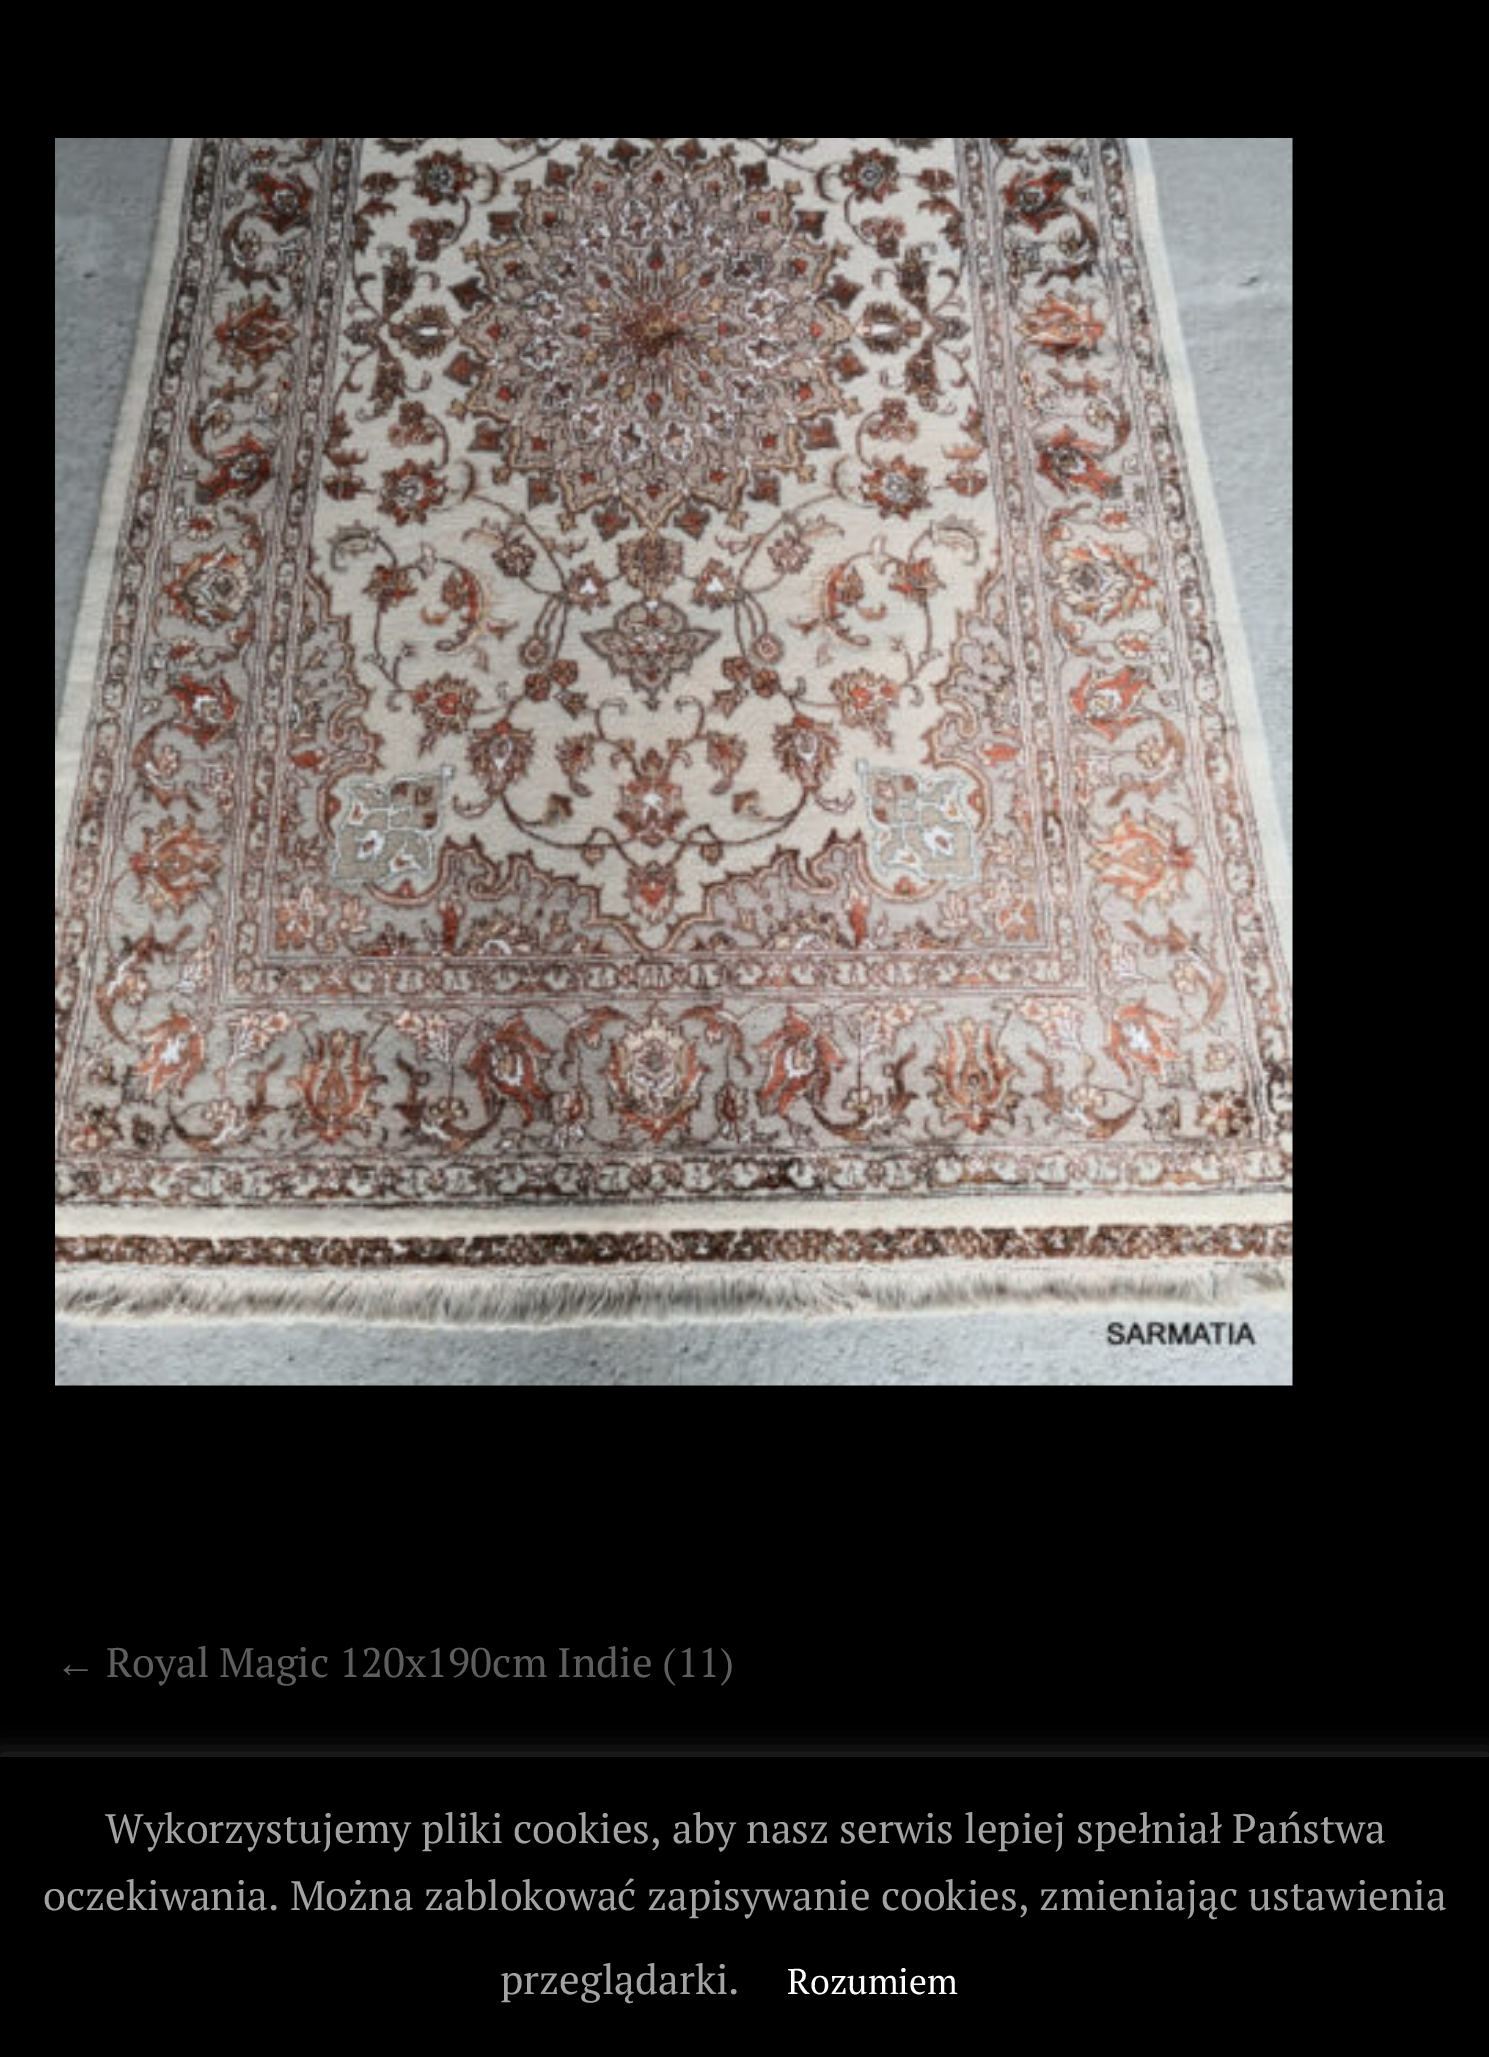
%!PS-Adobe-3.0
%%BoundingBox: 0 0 1489 2057
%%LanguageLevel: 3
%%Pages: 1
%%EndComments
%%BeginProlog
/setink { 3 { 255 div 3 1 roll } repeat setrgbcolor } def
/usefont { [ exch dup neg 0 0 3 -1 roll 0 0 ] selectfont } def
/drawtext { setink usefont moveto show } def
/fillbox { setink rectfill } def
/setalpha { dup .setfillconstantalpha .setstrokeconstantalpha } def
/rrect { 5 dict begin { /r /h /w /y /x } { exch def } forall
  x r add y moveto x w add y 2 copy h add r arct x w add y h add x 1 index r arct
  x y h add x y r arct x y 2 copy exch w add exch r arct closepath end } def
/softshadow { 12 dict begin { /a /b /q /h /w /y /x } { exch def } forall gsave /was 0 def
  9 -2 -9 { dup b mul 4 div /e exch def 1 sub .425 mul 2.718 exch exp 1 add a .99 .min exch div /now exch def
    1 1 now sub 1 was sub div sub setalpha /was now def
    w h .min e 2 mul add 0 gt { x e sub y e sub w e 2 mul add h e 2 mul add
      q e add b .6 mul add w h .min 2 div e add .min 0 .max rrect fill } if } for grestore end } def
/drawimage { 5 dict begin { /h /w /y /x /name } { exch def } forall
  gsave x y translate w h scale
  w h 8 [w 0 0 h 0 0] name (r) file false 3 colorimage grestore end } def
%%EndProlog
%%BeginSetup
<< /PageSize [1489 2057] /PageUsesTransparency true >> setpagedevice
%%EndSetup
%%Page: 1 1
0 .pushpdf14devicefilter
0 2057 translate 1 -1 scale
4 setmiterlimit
0 0 1489 2057 0 0 0 fillbox
(assets/img1.rgb) 55 138 1238 1248 drawimage
(←) 55 1677 /LiberationSans-Regular 41.25 94 94 94 drawtext
(Royal Magic 120x190cm Indie \(11\)) 106 1677 /PTSerif-Regular 41.25 94 94 94 drawtext
172 171 171 setink
0 1755 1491 299 0 14 0.3 softshadow
0 1757 1489 300 0 0 0 fillbox
(Wykorzystujemy pliki cookies, aby nasz serwis lepiej spełniał Państwa) 105 1843 /PTSerif-Regular 41.25 163 163 163 drawtext
(oczekiwania. Można zablokować zapisywanie cookies, zmieniając ustawienia) 43 1910 /PTSerif-Regular 41.25 163 163 163 drawtext
(przeglądarki.) 500 1994 /PTSerif-Regular 41.25 163 163 163 drawtext
(Rozumiem) 787 1994 /PTSerif-Regular 35.75 255 255 255 drawtext
.poppdf14devicefilter showpage
%%EOF
